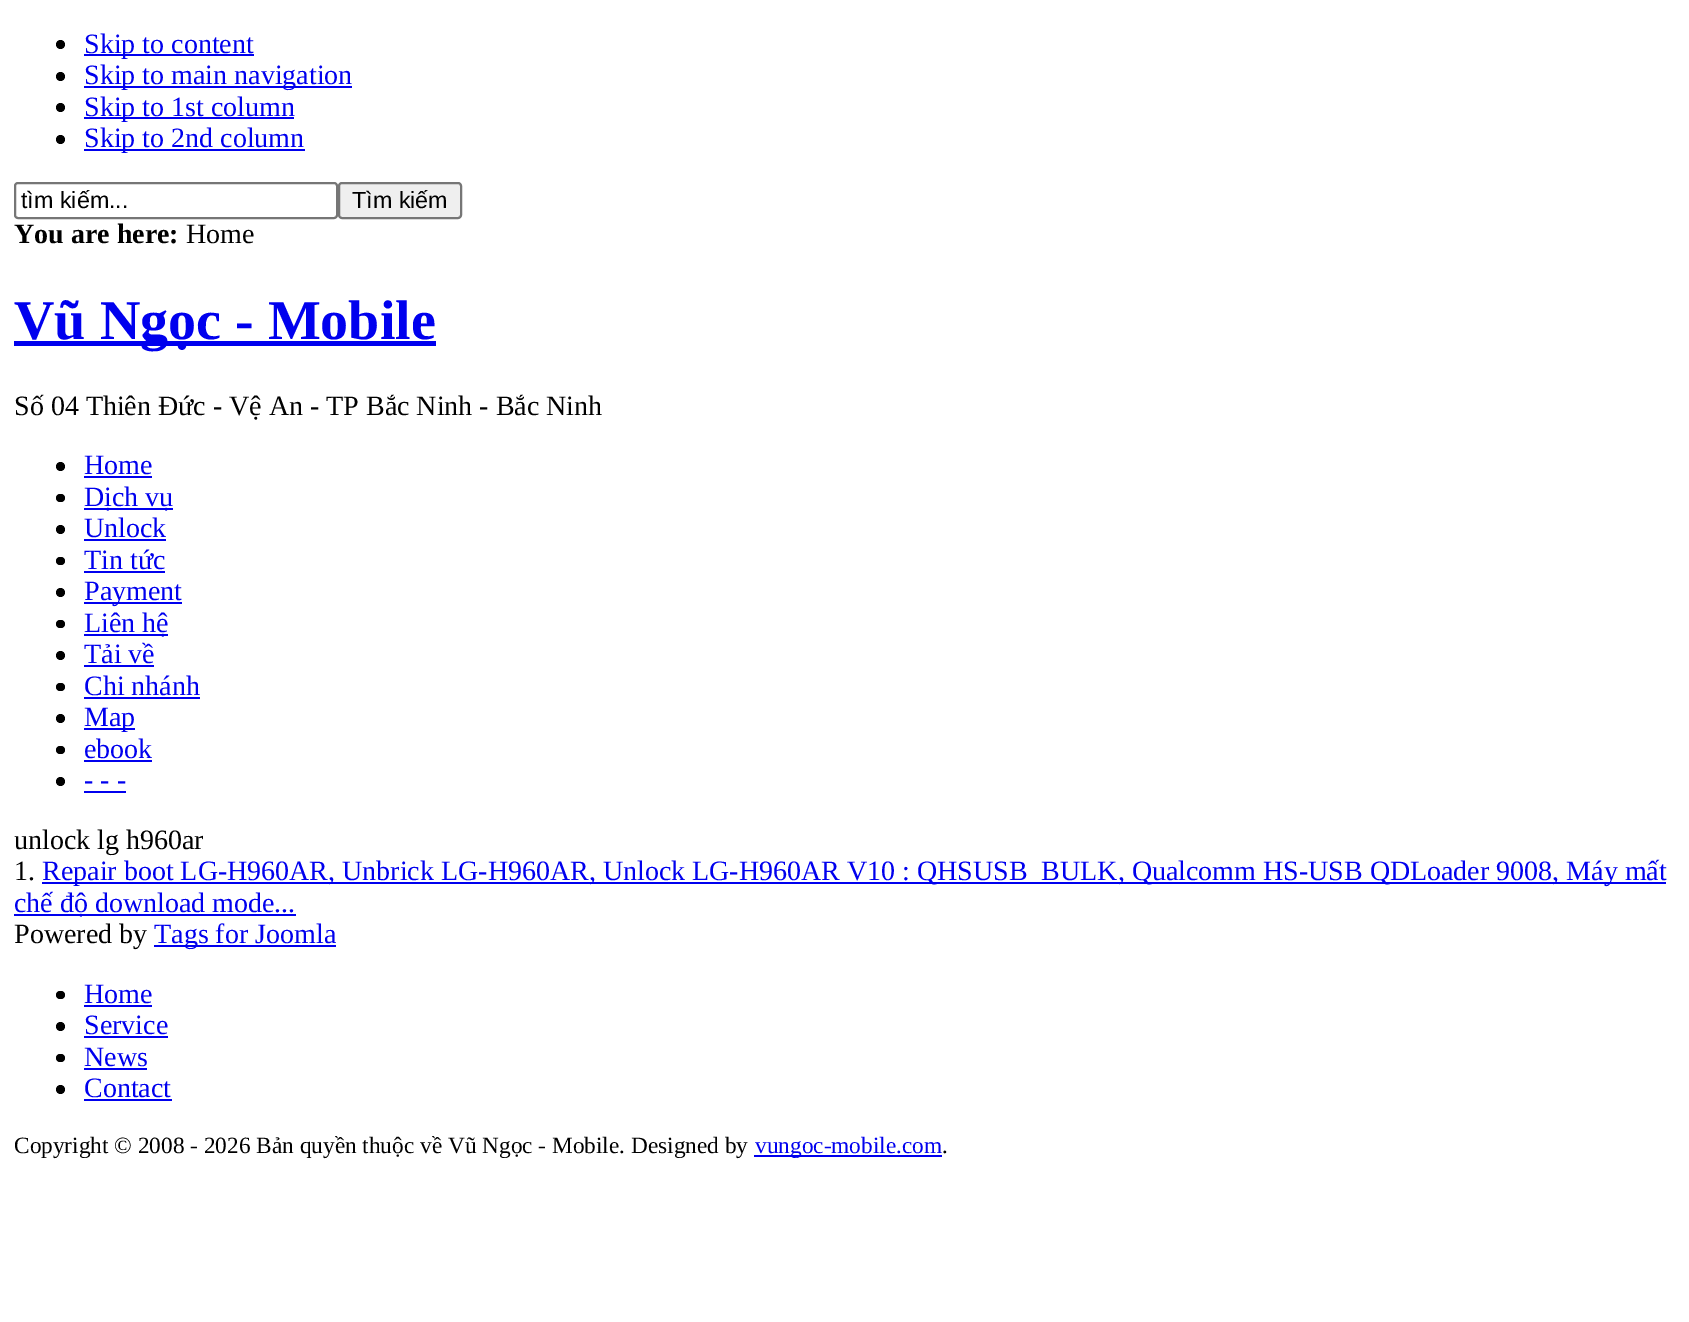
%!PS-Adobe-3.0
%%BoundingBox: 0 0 1689 1322
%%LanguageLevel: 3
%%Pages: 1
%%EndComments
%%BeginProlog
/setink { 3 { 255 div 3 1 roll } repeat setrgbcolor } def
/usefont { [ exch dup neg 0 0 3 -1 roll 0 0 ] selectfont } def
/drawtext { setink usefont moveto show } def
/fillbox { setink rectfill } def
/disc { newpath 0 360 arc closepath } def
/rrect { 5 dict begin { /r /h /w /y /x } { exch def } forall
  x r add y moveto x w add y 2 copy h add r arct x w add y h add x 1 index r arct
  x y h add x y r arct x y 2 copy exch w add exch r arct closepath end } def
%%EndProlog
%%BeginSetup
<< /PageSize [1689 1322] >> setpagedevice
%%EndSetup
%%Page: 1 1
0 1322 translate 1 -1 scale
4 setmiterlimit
0 0 1689 1322 255 255 255 fillbox
0 0 0 setink
60.5 44.5 4.5 disc fill
84 54 170 2 0 0 238 fillbox
(Skip to content) 84 53 /LiberationSerif-Regular 28 0 0 238 drawtext
0 0 0 setink
60.5 76.5 4.5 disc fill
84 86 268 2 0 0 238 fillbox
(Skip to main navigation) 84 84 /LiberationSerif-Regular 28 0 0 238 drawtext
0 0 0 setink
60.5 107.5 4.5 disc fill
84 117 210 2 0 0 238 fillbox
(Skip to 1st column) 84 116 /LiberationSerif-Regular 28 0 0 238 drawtext
0 0 0 setink
60.5 139.5 4.5 disc fill
84 149 221 2 0 0 238 fillbox
(Skip to 2nd column) 84 147 /LiberationSerif-Regular 28 0 0 238 drawtext
118 118 118 setink
2 setlinewidth
15 183 322 35 3 rrect stroke
(tìm kiếm...) 21 208 /LiberationSans-Regular 23.3 0 0 0 drawtext
239 239 239 setink
339 183 122 35 3 rrect gsave fill grestore
118 118 118 setink
stroke
(Tìm kiếm) 352 208 /LiberationSans-Regular 23.3 0 0 0 drawtext
(You are here:) 14 243 /LiberationSerif-Bold 28 0 0 0 drawtext
(Home) 186 243 /LiberationSerif-Regular 28 0 0 0 drawtext
14 341 422 5 0 0 238 fillbox
(Vũ Ngọc - Mobile) 14 339 /LiberationSerif-Bold 56 0 0 238 drawtext
(Số 04 Thiên Đức - Vệ An - TP Bắc Ninh - Bắc Ninh) 14 415 /LiberationSerif-Regular 28 0 0 0 drawtext
60.5 466.5 4.5 disc fill
(Home) 84 474 /LiberationSerif-Regular 28 0 0 238 drawtext
84 476 68 2 0 0 238 fillbox
0 0 0 setink
56 494 9 8 4 rrect fill
84 508 89 2 0 0 238 fillbox
(Dịch vụ) 84 506 /LiberationSerif-Regular 28 0 0 238 drawtext
0 0 0 setink
60.5 529.5 4.5 disc fill
(Unlock) 84 537 /LiberationSerif-Regular 28 0 0 238 drawtext
84 539 82 2 0 0 238 fillbox
0 0 0 setink
56 557 9 8 4 rrect fill
(Tin tức) 84 569 /LiberationSerif-Regular 28 0 0 238 drawtext
84 571 81 2 0 0 238 fillbox
0 0 0 setink
60.5 592.5 4.5 disc fill
84 602 98 2 0 0 238 fillbox
(Payment) 84 600 /LiberationSerif-Regular 28 0 0 238 drawtext
0 0 0 setink
56 620 9 8 4 rrect fill
84 634 84 2 0 0 238 fillbox
(Liên hệ) 84 632 /LiberationSerif-Regular 28 0 0 238 drawtext
0 0 0 setink
60.5 655.5 4.5 disc fill
(Tải về) 84 663 /LiberationSerif-Regular 28 0 0 238 drawtext
84 665 70 2 0 0 238 fillbox
0 0 0 setink
56 683 9 8 4 rrect fill
(Chi nhánh) 84 695 /LiberationSerif-Regular 28 0 0 238 drawtext
84 697 116 2 0 0 238 fillbox
0 0 0 setink
60.5 718.5 4.5 disc fill
84 728 51 2 0 0 238 fillbox
(Map) 84 726 /LiberationSerif-Regular 28 0 0 238 drawtext
0 0 0 setink
56 746 9 8 4 rrect fill
(ebook) 84 758 /LiberationSerif-Regular 28 0 0 238 drawtext
84 760 68 2 0 0 238 fillbox
0 0 0 setink
60.5 781.5 4.5 disc fill
(- - -) 84 789 /LiberationSerif-Regular 28 0 0 238 drawtext
84 791 42 2 0 0 238 fillbox
(unlock lg h960ar) 14 849 /LiberationSerif-Regular 28 0 0 0 drawtext
(1.) 14 880 /LiberationSerif-Regular 28 0 0 0 drawtext
42 882 1624 2 0 0 238 fillbox
(Repair boot LG-H960AR, Unbrick LG-H960AR, Unlock LG-H960AR V10 : QHSUSB_BULK, Qualcomm HS-USB QDLoader 9008, Máy mất) 42 880 /LiberationSerif-Regular 28 0 0 238 drawtext
14 914 282 2 0 0 238 fillbox
(chế độ download mode...) 14 912 /LiberationSerif-Regular 28 0 0 238 drawtext
(Powered by) 14 943 /LiberationSerif-Regular 28 0 0 0 drawtext
154 945 182 2 0 0 238 fillbox
(Tags for Joomla) 154 943 /LiberationSerif-Regular 28 0 0 238 drawtext
0 0 0 setink
56 991 9 8 4 rrect fill
(Home) 84 1003 /LiberationSerif-Regular 28 0 0 238 drawtext
84 1005 68 2 0 0 238 fillbox
0 0 0 setink
60.5 1026.5 4.5 disc fill
(Service) 84 1034 /LiberationSerif-Regular 28 0 0 238 drawtext
84 1036 84 2 0 0 238 fillbox
0 0 0 setink
56 1054 9 8 4 rrect fill
(News) 84 1066 /LiberationSerif-Regular 28 0 0 238 drawtext
84 1068 63 2 0 0 238 fillbox
0 0 0 setink
60.5 1089.5 4.5 disc fill
(Contact) 84 1097 /LiberationSerif-Regular 28 0 0 238 drawtext
84 1099 88 2 0 0 238 fillbox
(Copyright © 2008 - 2026 Bản quyền thuộc về Vũ Ngọc - Mobile. Designed by) 14 1153 /LiberationSerif-Regular 23.3 0 0 0 drawtext
754 1155 188 2 0 0 238 fillbox
(vungoc-mobile.com) 755 1153 /LiberationSerif-Regular 23.3 0 0 238 drawtext
(.) 942 1153 /LiberationSerif-Regular 23.3 0 0 0 drawtext
showpage
%%EOF
